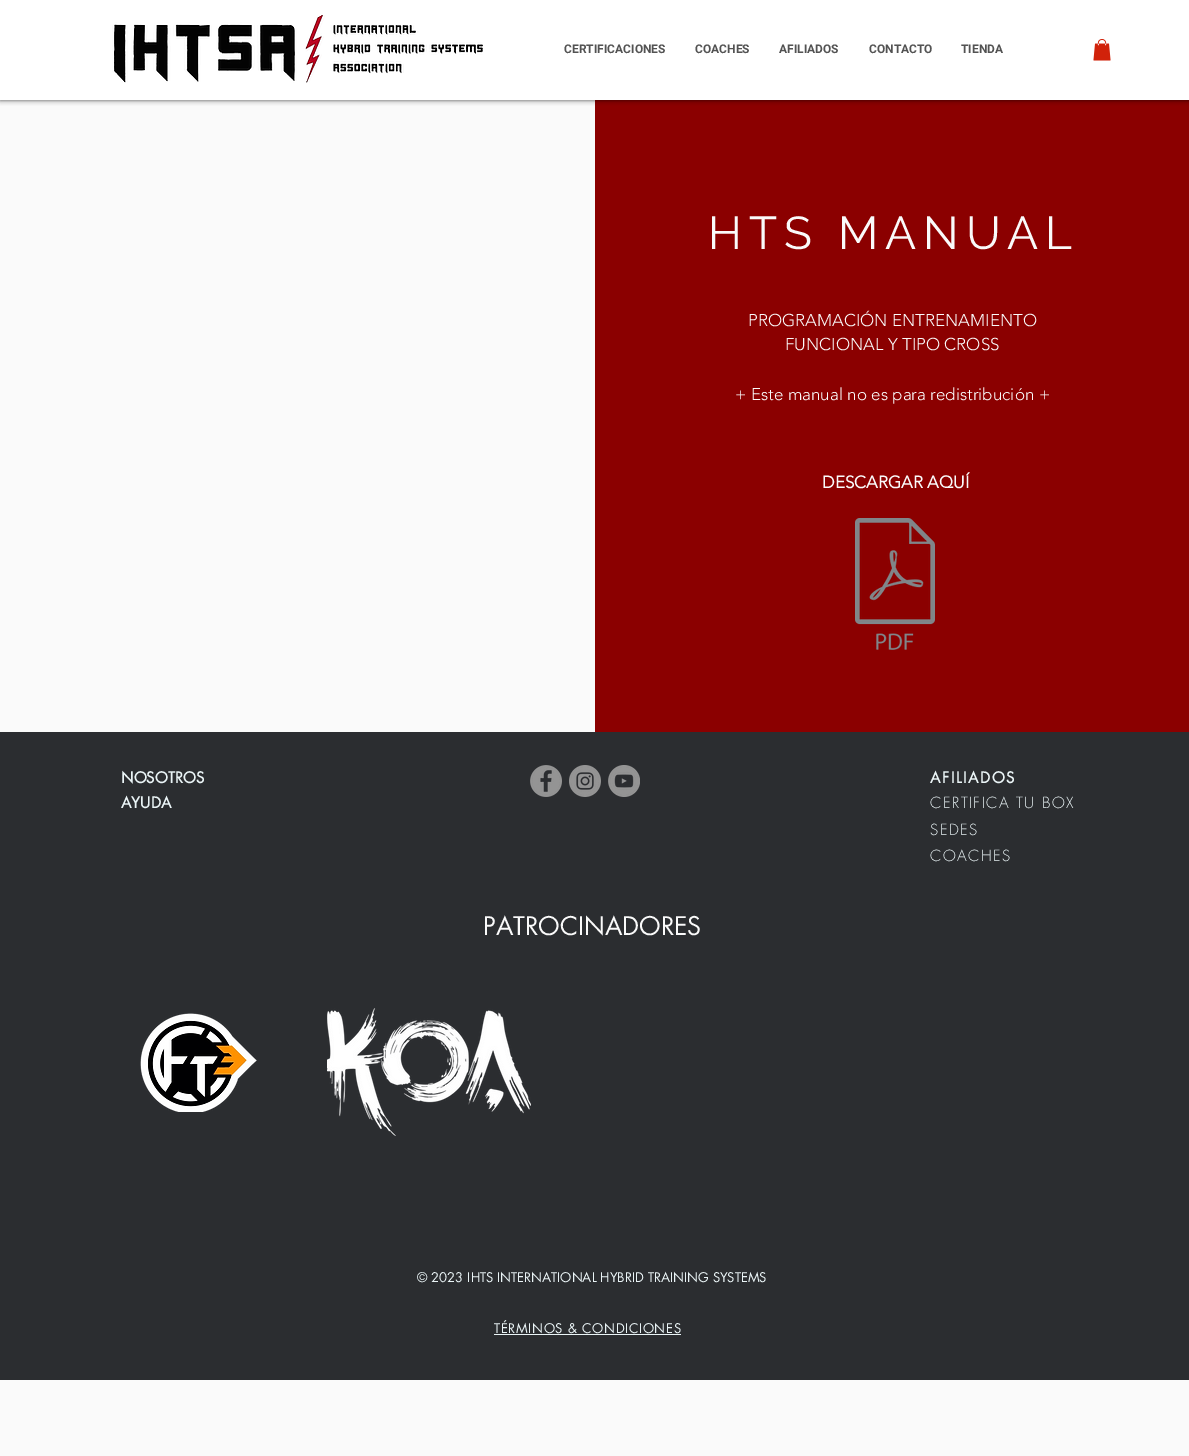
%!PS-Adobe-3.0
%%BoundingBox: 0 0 1189 1456
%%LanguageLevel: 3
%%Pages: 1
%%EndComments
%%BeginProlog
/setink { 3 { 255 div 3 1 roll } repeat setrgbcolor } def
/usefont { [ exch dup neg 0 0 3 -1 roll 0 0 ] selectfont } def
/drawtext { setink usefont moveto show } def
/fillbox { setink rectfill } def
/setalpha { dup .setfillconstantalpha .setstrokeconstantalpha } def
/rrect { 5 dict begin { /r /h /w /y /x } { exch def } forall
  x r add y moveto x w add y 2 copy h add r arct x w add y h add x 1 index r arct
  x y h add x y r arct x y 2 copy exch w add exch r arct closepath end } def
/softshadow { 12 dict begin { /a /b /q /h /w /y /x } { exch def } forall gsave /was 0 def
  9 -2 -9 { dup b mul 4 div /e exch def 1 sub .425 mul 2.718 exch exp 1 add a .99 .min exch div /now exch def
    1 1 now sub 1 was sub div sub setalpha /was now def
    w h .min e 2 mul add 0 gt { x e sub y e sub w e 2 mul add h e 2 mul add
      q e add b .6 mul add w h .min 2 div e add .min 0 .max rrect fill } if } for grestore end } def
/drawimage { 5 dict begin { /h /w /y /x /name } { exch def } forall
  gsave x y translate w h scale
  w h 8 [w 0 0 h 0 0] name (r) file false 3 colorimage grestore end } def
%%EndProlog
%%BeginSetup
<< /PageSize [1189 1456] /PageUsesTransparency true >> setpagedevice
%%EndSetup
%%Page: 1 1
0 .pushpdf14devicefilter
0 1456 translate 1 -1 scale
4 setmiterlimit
0 0 1189 1456 250 250 250 fillbox
595 100 594 632 139 0 0 fillbox
0 0 0 setink
0 0 1189 100 0 2.5 0.7 softshadow
0 0 1189 100 255 255 255 fillbox
(assets/img1.rgb) 112 15 371 68 drawimage
(CERTIFICACIONES) 564 53 /Roboto-Bold 12 83 83 83 drawtext
(COACHES) 695 53 /Roboto-Bold 12 83 83 83 drawtext
(AFILIADOS) 779 53 /Roboto-Bold 12 83 83 83 drawtext
(CONTACTO) 869 53 /Roboto-Bold 12 83 83 83 drawtext
(TIENDA) 961 53 /Roboto-Bold 12 83 83 83 drawtext
(assets/img2.rgb) 1093 39 18 22 drawimage
/Raleway-Regular 46 usefont
250 250 250 setink
708 249 moveto 7 0 (HTS MANUAL) ashow
(PROGRAMACIÓN ENTRENAMIENTO) 748 326 /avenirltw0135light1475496-Light 17 250 250 250 drawtext
(FUNCIONAL Y TIPO CROSS) 785 350 /avenirltw0135light1475496-Light 17 250 250 250 drawtext
(+ Este manual no es para redistribución +) 735 400 /avenirltw0135light1475496-Light 17 250 250 250 drawtext
(DESCARGAR AQUÍ) 822 488 /avenirltw0135light1475496-Bold 17 250 250 250 drawtext
(assets/img3.rgb) 855 518 80 132 drawimage
0 732 1189 648 43 45 48 fillbox
(NOSOTROS) 121 783 /futura-Bold 15 234 244 246 drawtext
(AYUDA) 121 808 /futura-Bold 15 234 244 246 drawtext
(assets/img4.rgb) 530 765 32 32 drawimage
(assets/img5.rgb) 569 765 32 32 drawimage
(assets/img6.rgb) 608 765 32 32 drawimage
930 783 moveto 1.5 0 (AFILIADOS) ashow
/futura-Light 15 usefont
930 808 moveto 1.5 0 (CERTIFICA TU BOX) ashow
930 835 moveto 1.5 0 (SEDES) ashow
930 861 moveto 1.5 0 (COACHES) ashow
(PATROCINADORES) 483 935 /futura-Regular 25 250 250 250 drawtext
(assets/img7.rgb) 140 1013 117 99 drawimage
(assets/img8.rgb) 327 1008 204 128 drawimage
(© 2023 IHTS INTERNATIONAL HYBRID TRAINING SYSTEMS) 417 1282 /futura-Regular 13 234 244 246 drawtext
494 1333 moveto 0.65 0 (TÉRMINOS & CONDICIONES) ashow
494 1334 187 1 234 244 246 fillbox
.poppdf14devicefilter showpage
%%EOF
